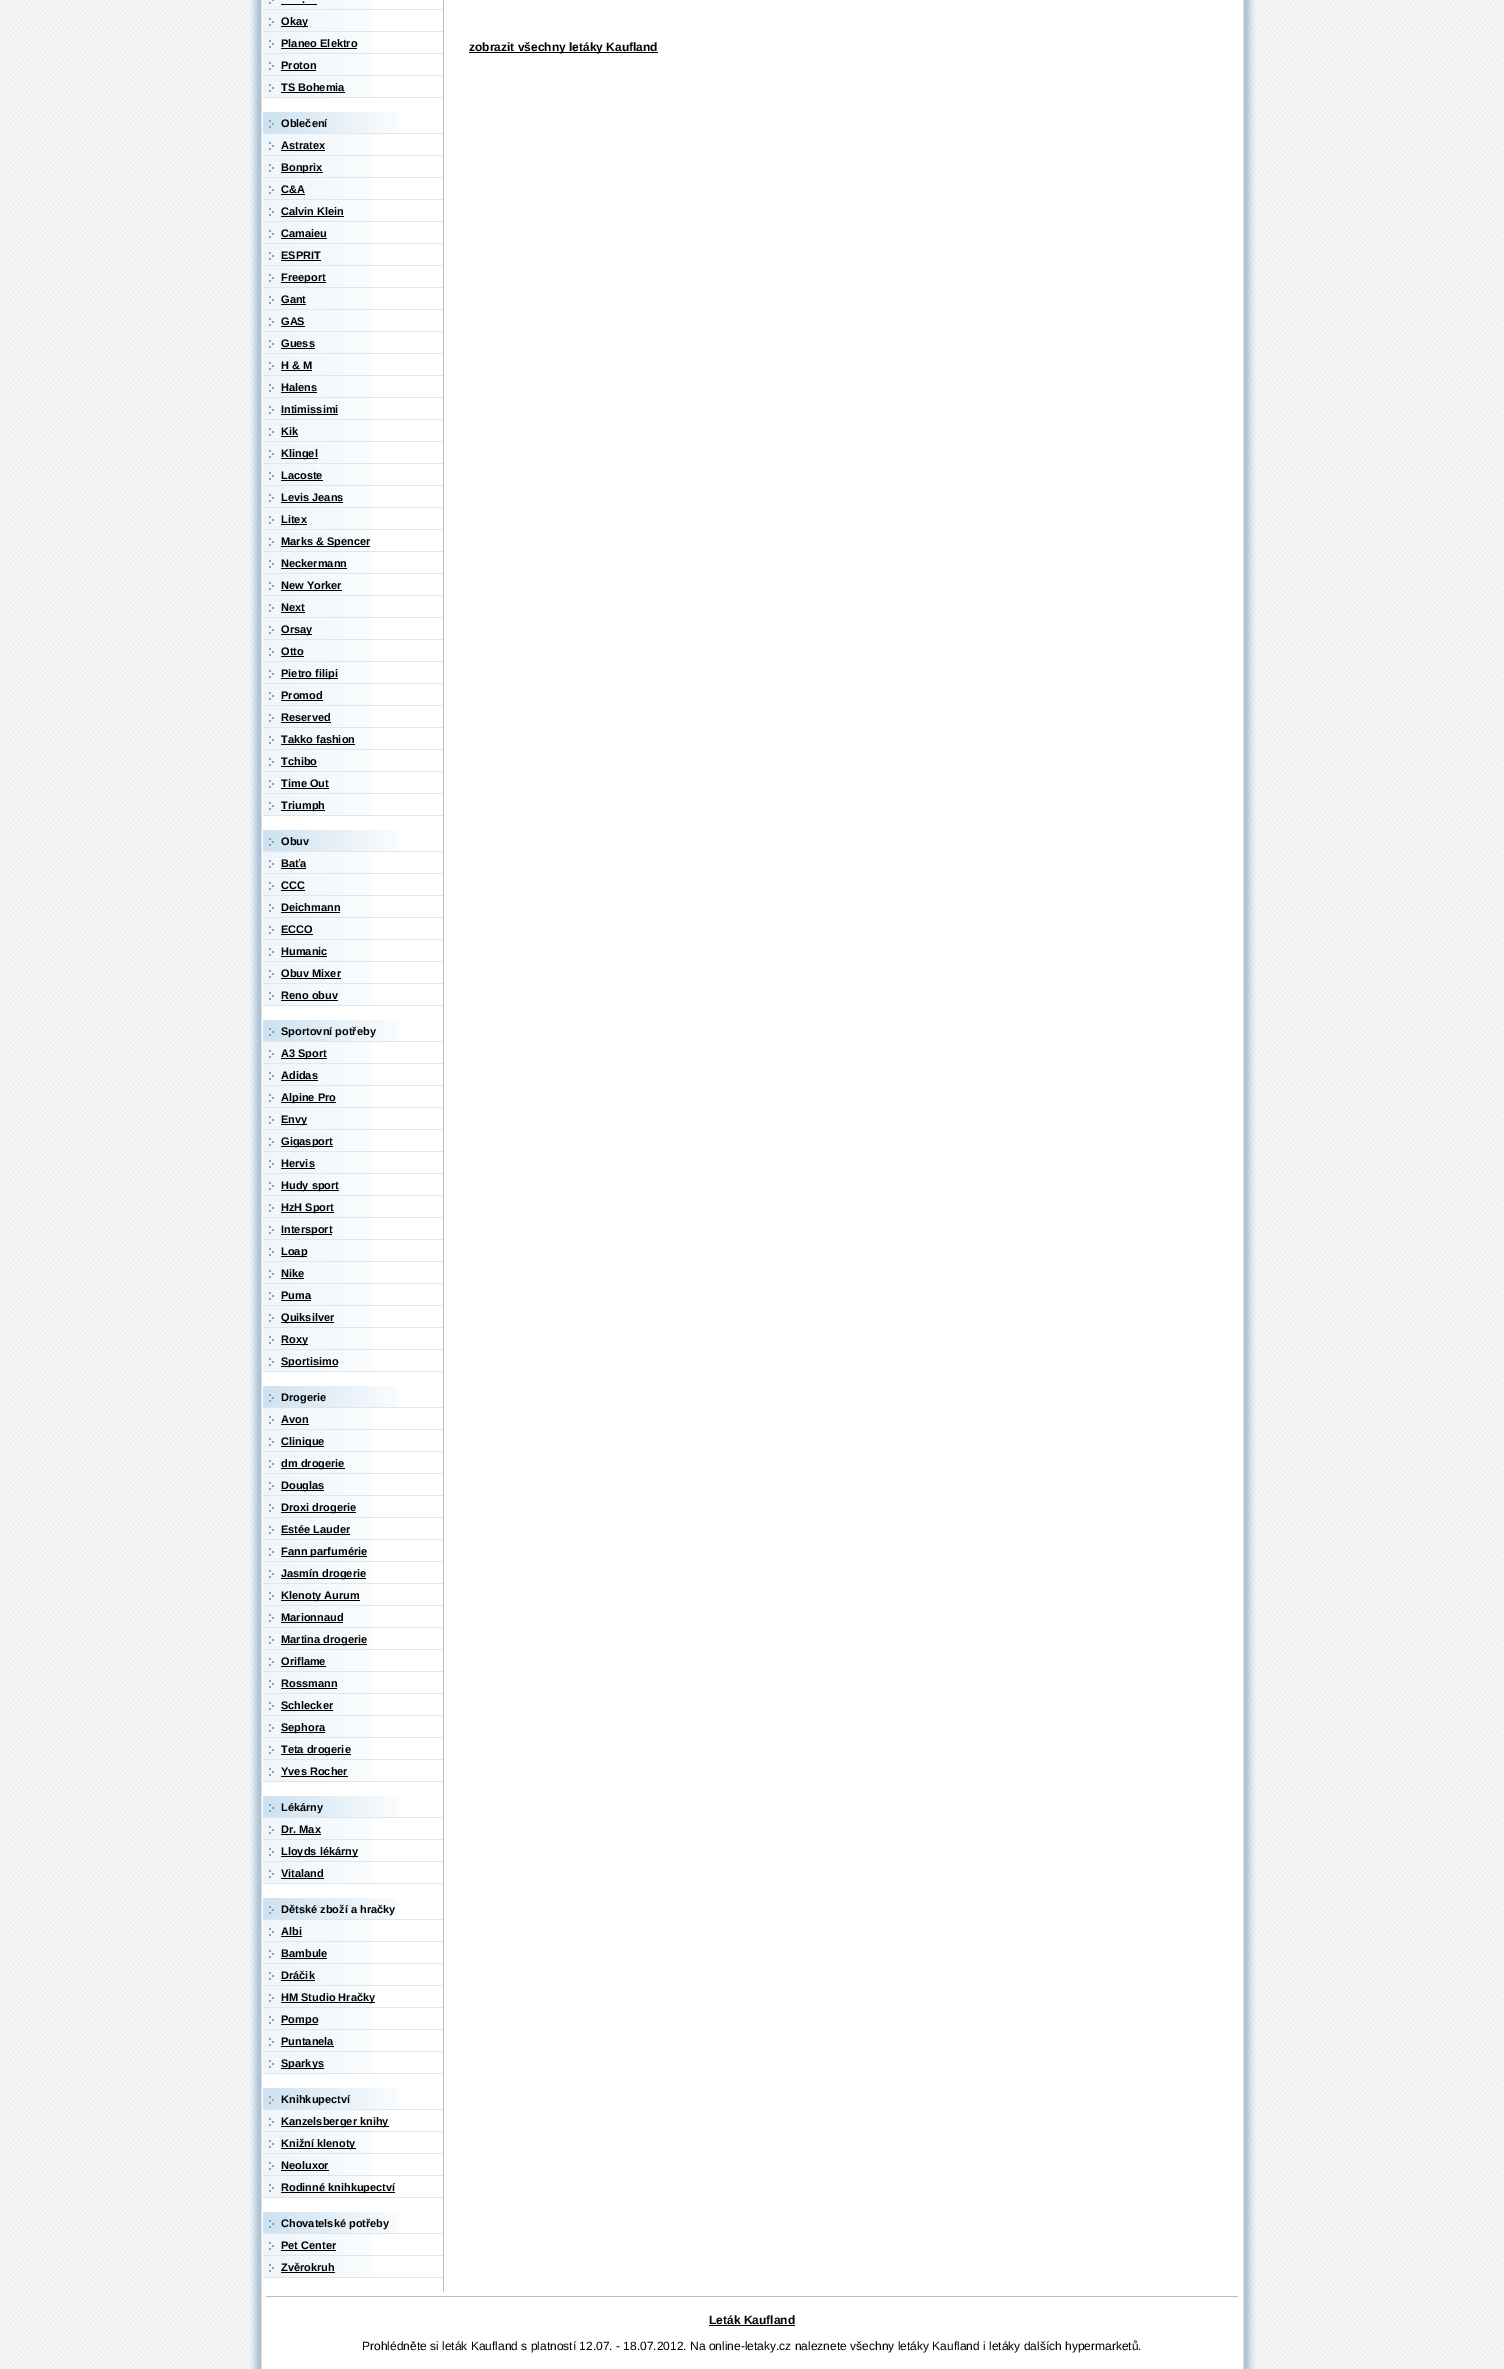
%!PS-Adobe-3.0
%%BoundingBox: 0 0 1504 2369
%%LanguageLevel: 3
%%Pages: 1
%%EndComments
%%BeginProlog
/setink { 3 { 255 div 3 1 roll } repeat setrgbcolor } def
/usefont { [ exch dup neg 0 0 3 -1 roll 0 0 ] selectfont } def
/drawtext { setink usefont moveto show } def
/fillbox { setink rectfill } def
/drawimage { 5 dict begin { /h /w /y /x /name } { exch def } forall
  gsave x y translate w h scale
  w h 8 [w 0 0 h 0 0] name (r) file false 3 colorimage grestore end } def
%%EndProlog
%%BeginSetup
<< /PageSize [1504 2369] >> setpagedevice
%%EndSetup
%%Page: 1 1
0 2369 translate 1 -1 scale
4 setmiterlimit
0 0 1504 2369 255 255 255 fillbox
(assets/img1.rgb) 0 0 1504 2369 drawimage
443 0 1 2292 175 193 210 fillbox
(assets/img2.rgb) 263 0 109 9 drawimage
263 9 180 1 223 230 237 fillbox
(.) 302 3 /LiberationSans-Bold 11 0 0 0 drawtext
281 4 36 1 0 0 0 fillbox
(assets/img3.rgb) 263 10 109 21 drawimage
263 31 180 1 223 230 237 fillbox
281 26 27 1 0 0 0 fillbox
(Okay) 281 25 /LiberationSans-Bold 11 0 0 0 drawtext
(assets/img3.rgb) 263 32 109 21 drawimage
263 53 180 1 223 230 237 fillbox
(Planeo Elektro) 281 47 /LiberationSans-Bold 11 0 0 0 drawtext
281 48 76 1 0 0 0 fillbox
(assets/img3.rgb) 263 54 109 21 drawimage
263 75 180 1 223 230 237 fillbox
(Proton) 281 69 /LiberationSans-Bold 11 0 0 0 drawtext
281 70 35 1 0 0 0 fillbox
(assets/img3.rgb) 263 76 109 21 drawimage
263 97 180 1 223 230 237 fillbox
(TS Bohemia) 281 91 /LiberationSans-Bold 11 0 0 0 drawtext
281 92 64 1 0 0 0 fillbox
(assets/img4.rgb) 263 112 136 21 drawimage
263 133 180 1 223 230 237 fillbox
(Oblečení) 281 127 /LiberationSans-Bold 11 0 0 0 drawtext
(assets/img3.rgb) 263 134 109 21 drawimage
263 155 180 1 223 230 237 fillbox
(Astratex) 281 149 /LiberationSans-Bold 11 0 0 0 drawtext
281 150 44 1 0 0 0 fillbox
(assets/img3.rgb) 263 156 109 21 drawimage
263 177 180 1 223 230 237 fillbox
281 172 42 1 0 0 0 fillbox
(Bonprix) 281 171 /LiberationSans-Bold 11 0 0 0 drawtext
(assets/img3.rgb) 263 178 109 21 drawimage
263 199 180 1 223 230 237 fillbox
(C&A) 281 193 /LiberationSans-Bold 11 0 0 0 drawtext
281 194 24 1 0 0 0 fillbox
(assets/img3.rgb) 263 200 109 21 drawimage
263 221 180 1 223 230 237 fillbox
(Calvin Klein) 281 215 /LiberationSans-Bold 11 0 0 0 drawtext
281 216 63 1 0 0 0 fillbox
(assets/img3.rgb) 263 222 109 21 drawimage
263 243 180 1 223 230 237 fillbox
(Camaieu) 281 237 /LiberationSans-Bold 11 0 0 0 drawtext
281 238 46 1 0 0 0 fillbox
(assets/img3.rgb) 263 244 109 21 drawimage
263 265 180 1 223 230 237 fillbox
(ESPRIT) 281 259 /LiberationSans-Bold 11 0 0 0 drawtext
281 260 40 1 0 0 0 fillbox
(assets/img3.rgb) 263 266 109 21 drawimage
263 287 180 1 223 230 237 fillbox
281 282 45 1 0 0 0 fillbox
(Freeport) 281 281 /LiberationSans-Bold 11 0 0 0 drawtext
(assets/img3.rgb) 263 288 109 21 drawimage
263 309 180 1 223 230 237 fillbox
(Gant) 281 303 /LiberationSans-Bold 11 0 0 0 drawtext
281 304 25 1 0 0 0 fillbox
(assets/img3.rgb) 263 310 109 21 drawimage
263 331 180 1 223 230 237 fillbox
(GAS) 281 325 /LiberationSans-Bold 11 0 0 0 drawtext
281 326 24 1 0 0 0 fillbox
(assets/img3.rgb) 263 332 109 21 drawimage
263 353 180 1 223 230 237 fillbox
(Guess) 281 347 /LiberationSans-Bold 11 0 0 0 drawtext
281 348 34 1 0 0 0 fillbox
(assets/img3.rgb) 263 354 109 21 drawimage
263 375 180 1 223 230 237 fillbox
(H & M) 281 369 /LiberationSans-Bold 11 0 0 0 drawtext
281 370 31 1 0 0 0 fillbox
(assets/img3.rgb) 263 376 109 21 drawimage
263 397 180 1 223 230 237 fillbox
(Halens) 281 391 /LiberationSans-Bold 11 0 0 0 drawtext
281 392 36 1 0 0 0 fillbox
(assets/img3.rgb) 263 398 109 21 drawimage
263 419 180 1 223 230 237 fillbox
(Intimissimi) 281 413 /LiberationSans-Bold 11 0 0 0 drawtext
281 414 57 1 0 0 0 fillbox
(assets/img3.rgb) 263 420 109 21 drawimage
263 441 180 1 223 230 237 fillbox
(Kik) 281 435 /LiberationSans-Bold 11 0 0 0 drawtext
281 436 17 1 0 0 0 fillbox
(assets/img3.rgb) 263 442 109 21 drawimage
263 463 180 1 223 230 237 fillbox
281 458 37 1 0 0 0 fillbox
(Klingel) 281 457 /LiberationSans-Bold 11 0 0 0 drawtext
(assets/img3.rgb) 263 464 109 21 drawimage
263 485 180 1 223 230 237 fillbox
(Lacoste) 281 479 /LiberationSans-Bold 11 0 0 0 drawtext
281 480 42 1 0 0 0 fillbox
(assets/img3.rgb) 263 486 109 21 drawimage
263 507 180 1 223 230 237 fillbox
(Levis Jeans) 281 501 /LiberationSans-Bold 11 0 0 0 drawtext
281 502 62 1 0 0 0 fillbox
(assets/img3.rgb) 263 508 109 21 drawimage
263 529 180 1 223 230 237 fillbox
(Litex) 281 523 /LiberationSans-Bold 11 0 0 0 drawtext
281 524 26 1 0 0 0 fillbox
(assets/img3.rgb) 263 530 109 21 drawimage
263 551 180 1 223 230 237 fillbox
281 546 89 1 0 0 0 fillbox
(Marks & Spencer) 281 545 /LiberationSans-Bold 11 0 0 0 drawtext
(assets/img3.rgb) 263 552 109 21 drawimage
263 573 180 1 223 230 237 fillbox
(Neckermann) 281 567 /LiberationSans-Bold 11 0 0 0 drawtext
281 568 66 1 0 0 0 fillbox
(assets/img3.rgb) 263 574 109 21 drawimage
263 595 180 1 223 230 237 fillbox
(New Yorker) 281 589 /LiberationSans-Bold 11 0 0 0 drawtext
281 590 61 1 0 0 0 fillbox
(assets/img3.rgb) 263 596 109 21 drawimage
263 617 180 1 223 230 237 fillbox
(Next) 281 611 /LiberationSans-Bold 11 0 0 0 drawtext
281 612 24 1 0 0 0 fillbox
(assets/img3.rgb) 263 618 109 21 drawimage
263 639 180 1 223 230 237 fillbox
281 634 31 1 0 0 0 fillbox
(Orsay) 281 633 /LiberationSans-Bold 11 0 0 0 drawtext
(assets/img3.rgb) 263 640 109 21 drawimage
263 661 180 1 223 230 237 fillbox
(Otto) 281 655 /LiberationSans-Bold 11 0 0 0 drawtext
281 656 23 1 0 0 0 fillbox
(assets/img3.rgb) 263 662 109 21 drawimage
263 683 180 1 223 230 237 fillbox
281 678 57 1 0 0 0 fillbox
(Pietro filipi) 281 677 /LiberationSans-Bold 11 0 0 0 drawtext
(assets/img3.rgb) 263 684 109 21 drawimage
263 705 180 1 223 230 237 fillbox
(Promod) 281 699 /LiberationSans-Bold 11 0 0 0 drawtext
281 700 42 1 0 0 0 fillbox
(assets/img3.rgb) 263 706 109 21 drawimage
263 727 180 1 223 230 237 fillbox
(Reserved) 281 721 /LiberationSans-Bold 11 0 0 0 drawtext
281 722 50 1 0 0 0 fillbox
(assets/img3.rgb) 263 728 109 21 drawimage
263 749 180 1 223 230 237 fillbox
(Takko fashion) 281 743 /LiberationSans-Bold 11 0 0 0 drawtext
281 744 74 1 0 0 0 fillbox
(assets/img3.rgb) 263 750 109 21 drawimage
263 771 180 1 223 230 237 fillbox
(Tchibo) 281 765 /LiberationSans-Bold 11 0 0 0 drawtext
281 766 36 1 0 0 0 fillbox
(assets/img3.rgb) 263 772 109 21 drawimage
263 793 180 1 223 230 237 fillbox
(Time Out) 281 787 /LiberationSans-Bold 11 0 0 0 drawtext
281 788 48 1 0 0 0 fillbox
(assets/img3.rgb) 263 794 109 21 drawimage
263 815 180 1 223 230 237 fillbox
281 810 44 1 0 0 0 fillbox
(Triumph) 281 809 /LiberationSans-Bold 11 0 0 0 drawtext
(assets/img4.rgb) 263 830 136 21 drawimage
263 851 180 1 223 230 237 fillbox
(Obuv) 281 845 /LiberationSans-Bold 11 0 0 0 drawtext
(assets/img3.rgb) 263 852 109 21 drawimage
263 873 180 1 223 230 237 fillbox
(Baťa) 281 867 /LiberationSans-Bold 11 0 0 0 drawtext
281 868 25 1 0 0 0 fillbox
(assets/img3.rgb) 263 874 109 21 drawimage
263 895 180 1 223 230 237 fillbox
(CCC) 281 889 /LiberationSans-Bold 11 0 0 0 drawtext
281 890 24 1 0 0 0 fillbox
(assets/img3.rgb) 263 896 109 21 drawimage
263 917 180 1 223 230 237 fillbox
(Deichmann) 281 911 /LiberationSans-Bold 11 0 0 0 drawtext
281 912 59 1 0 0 0 fillbox
(assets/img3.rgb) 263 918 109 21 drawimage
263 939 180 1 223 230 237 fillbox
(ECCO) 281 933 /LiberationSans-Bold 11 0 0 0 drawtext
281 934 32 1 0 0 0 fillbox
(assets/img3.rgb) 263 940 109 21 drawimage
263 961 180 1 223 230 237 fillbox
(Humanic) 281 955 /LiberationSans-Bold 11 0 0 0 drawtext
281 956 46 1 0 0 0 fillbox
(assets/img3.rgb) 263 962 109 21 drawimage
263 983 180 1 223 230 237 fillbox
(Obuv Mixer) 281 977 /LiberationSans-Bold 11 0 0 0 drawtext
281 978 60 1 0 0 0 fillbox
(assets/img3.rgb) 263 984 109 21 drawimage
263 1005 180 1 223 230 237 fillbox
(Reno obuv) 281 999 /LiberationSans-Bold 11 0 0 0 drawtext
281 1000 57 1 0 0 0 fillbox
(assets/img4.rgb) 263 1020 136 21 drawimage
263 1041 180 1 223 230 237 fillbox
(Sportovní potřeby) 281 1035 /LiberationSans-Bold 11 0 0 0 drawtext
(assets/img3.rgb) 263 1042 109 21 drawimage
263 1063 180 1 223 230 237 fillbox
281 1058 46 1 0 0 0 fillbox
(A3 Sport) 281 1057 /LiberationSans-Bold 11 0 0 0 drawtext
(assets/img3.rgb) 263 1064 109 21 drawimage
263 1085 180 1 223 230 237 fillbox
(Adidas) 281 1079 /LiberationSans-Bold 11 0 0 0 drawtext
281 1080 37 1 0 0 0 fillbox
(assets/img3.rgb) 263 1086 109 21 drawimage
263 1107 180 1 223 230 237 fillbox
281 1102 55 1 0 0 0 fillbox
(Alpine Pro) 281 1101 /LiberationSans-Bold 11 0 0 0 drawtext
(assets/img3.rgb) 263 1108 109 21 drawimage
263 1129 180 1 223 230 237 fillbox
281 1124 26 1 0 0 0 fillbox
(Envy) 281 1123 /LiberationSans-Bold 11 0 0 0 drawtext
(assets/img3.rgb) 263 1130 109 21 drawimage
263 1151 180 1 223 230 237 fillbox
281 1146 52 1 0 0 0 fillbox
(Gigasport) 281 1145 /LiberationSans-Bold 11 0 0 0 drawtext
(assets/img3.rgb) 263 1152 109 21 drawimage
263 1173 180 1 223 230 237 fillbox
(Hervis) 281 1167 /LiberationSans-Bold 11 0 0 0 drawtext
281 1168 34 1 0 0 0 fillbox
(assets/img3.rgb) 263 1174 109 21 drawimage
263 1195 180 1 223 230 237 fillbox
281 1190 58 1 0 0 0 fillbox
(Hudy sport) 281 1189 /LiberationSans-Bold 11 0 0 0 drawtext
(assets/img3.rgb) 263 1196 109 21 drawimage
263 1217 180 1 223 230 237 fillbox
281 1212 53 1 0 0 0 fillbox
(HzH Sport) 281 1211 /LiberationSans-Bold 11 0 0 0 drawtext
(assets/img3.rgb) 263 1218 109 21 drawimage
263 1239 180 1 223 230 237 fillbox
281 1234 51 1 0 0 0 fillbox
(Intersport) 281 1233 /LiberationSans-Bold 11 0 0 0 drawtext
(assets/img3.rgb) 263 1240 109 21 drawimage
263 1261 180 1 223 230 237 fillbox
281 1256 26 1 0 0 0 fillbox
(Loap) 281 1255 /LiberationSans-Bold 11 0 0 0 drawtext
(assets/img3.rgb) 263 1262 109 21 drawimage
263 1283 180 1 223 230 237 fillbox
(Nike) 281 1277 /LiberationSans-Bold 11 0 0 0 drawtext
281 1278 23 1 0 0 0 fillbox
(assets/img3.rgb) 263 1284 109 21 drawimage
263 1305 180 1 223 230 237 fillbox
(Puma) 281 1299 /LiberationSans-Bold 11 0 0 0 drawtext
281 1300 30 1 0 0 0 fillbox
(assets/img3.rgb) 263 1306 109 21 drawimage
263 1327 180 1 223 230 237 fillbox
281 1322 53 1 0 0 0 fillbox
(Quiksilver) 281 1321 /LiberationSans-Bold 11 0 0 0 drawtext
(assets/img3.rgb) 263 1328 109 21 drawimage
263 1349 180 1 223 230 237 fillbox
281 1344 27 1 0 0 0 fillbox
(Roxy) 281 1343 /LiberationSans-Bold 11 0 0 0 drawtext
(assets/img3.rgb) 263 1350 109 21 drawimage
263 1371 180 1 223 230 237 fillbox
281 1366 57 1 0 0 0 fillbox
(Sportisimo) 281 1365 /LiberationSans-Bold 11 0 0 0 drawtext
(assets/img4.rgb) 263 1386 136 21 drawimage
263 1407 180 1 223 230 237 fillbox
(Drogerie) 281 1401 /LiberationSans-Bold 11 0 0 0 drawtext
(assets/img3.rgb) 263 1408 109 21 drawimage
263 1429 180 1 223 230 237 fillbox
(Avon) 281 1423 /LiberationSans-Bold 11 0 0 0 drawtext
281 1424 28 1 0 0 0 fillbox
(assets/img3.rgb) 263 1430 109 21 drawimage
263 1451 180 1 223 230 237 fillbox
281 1446 43 1 0 0 0 fillbox
(Clinique) 281 1445 /LiberationSans-Bold 11 0 0 0 drawtext
(assets/img3.rgb) 263 1452 109 21 drawimage
263 1473 180 1 223 230 237 fillbox
281 1468 64 1 0 0 0 fillbox
(dm drogerie) 281 1467 /LiberationSans-Bold 11 0 0 0 drawtext
(assets/img3.rgb) 263 1474 109 21 drawimage
263 1495 180 1 223 230 237 fillbox
281 1490 43 1 0 0 0 fillbox
(Douglas) 281 1489 /LiberationSans-Bold 11 0 0 0 drawtext
(assets/img3.rgb) 263 1496 109 21 drawimage
263 1517 180 1 223 230 237 fillbox
281 1512 75 1 0 0 0 fillbox
(Droxi drogerie) 281 1511 /LiberationSans-Bold 11 0 0 0 drawtext
(assets/img3.rgb) 263 1518 109 21 drawimage
263 1539 180 1 223 230 237 fillbox
(Estée Lauder) 281 1533 /LiberationSans-Bold 11 0 0 0 drawtext
281 1534 69 1 0 0 0 fillbox
(assets/img3.rgb) 263 1540 109 21 drawimage
263 1561 180 1 223 230 237 fillbox
281 1556 86 1 0 0 0 fillbox
(Fann parfumérie) 281 1555 /LiberationSans-Bold 11 0 0 0 drawtext
(assets/img3.rgb) 263 1562 109 21 drawimage
263 1583 180 1 223 230 237 fillbox
281 1578 85 1 0 0 0 fillbox
(Jasmín drogerie) 281 1577 /LiberationSans-Bold 11 0 0 0 drawtext
(assets/img3.rgb) 263 1584 109 21 drawimage
263 1605 180 1 223 230 237 fillbox
281 1600 79 1 0 0 0 fillbox
(Klenoty Aurum) 281 1599 /LiberationSans-Bold 11 0 0 0 drawtext
(assets/img3.rgb) 263 1606 109 21 drawimage
263 1627 180 1 223 230 237 fillbox
(Marionnaud) 281 1621 /LiberationSans-Bold 11 0 0 0 drawtext
281 1622 62 1 0 0 0 fillbox
(assets/img3.rgb) 263 1628 109 21 drawimage
263 1649 180 1 223 230 237 fillbox
281 1644 86 1 0 0 0 fillbox
(Martina drogerie) 281 1643 /LiberationSans-Bold 11 0 0 0 drawtext
(assets/img3.rgb) 263 1650 109 21 drawimage
263 1671 180 1 223 230 237 fillbox
(Oriflame) 281 1665 /LiberationSans-Bold 11 0 0 0 drawtext
281 1666 45 1 0 0 0 fillbox
(assets/img3.rgb) 263 1672 109 21 drawimage
263 1693 180 1 223 230 237 fillbox
(Rossmann) 281 1687 /LiberationSans-Bold 11 0 0 0 drawtext
281 1688 56 1 0 0 0 fillbox
(assets/img3.rgb) 263 1694 109 21 drawimage
263 1715 180 1 223 230 237 fillbox
(Schlecker) 281 1709 /LiberationSans-Bold 11 0 0 0 drawtext
281 1710 52 1 0 0 0 fillbox
(assets/img3.rgb) 263 1716 109 21 drawimage
263 1737 180 1 223 230 237 fillbox
281 1732 44 1 0 0 0 fillbox
(Sephora) 281 1731 /LiberationSans-Bold 11 0 0 0 drawtext
(assets/img3.rgb) 263 1738 109 21 drawimage
263 1759 180 1 223 230 237 fillbox
281 1754 70 1 0 0 0 fillbox
(Teta drogerie) 281 1753 /LiberationSans-Bold 11 0 0 0 drawtext
(assets/img3.rgb) 263 1760 109 21 drawimage
263 1781 180 1 223 230 237 fillbox
(Yves Rocher) 281 1775 /LiberationSans-Bold 11 0 0 0 drawtext
281 1776 67 1 0 0 0 fillbox
(assets/img4.rgb) 263 1796 136 21 drawimage
263 1817 180 1 223 230 237 fillbox
(Lékárny) 281 1811 /LiberationSans-Bold 11 0 0 0 drawtext
(assets/img3.rgb) 263 1818 109 21 drawimage
263 1839 180 1 223 230 237 fillbox
(Dr. Max) 281 1833 /LiberationSans-Bold 11 0 0 0 drawtext
281 1834 40 1 0 0 0 fillbox
(assets/img3.rgb) 263 1840 109 21 drawimage
263 1861 180 1 223 230 237 fillbox
281 1856 77 1 0 0 0 fillbox
(Lloyds lékárny) 281 1855 /LiberationSans-Bold 11 0 0 0 drawtext
(assets/img3.rgb) 263 1862 109 21 drawimage
263 1883 180 1 223 230 237 fillbox
(Vitaland) 281 1877 /LiberationSans-Bold 11 0 0 0 drawtext
281 1878 43 1 0 0 0 fillbox
(assets/img4.rgb) 263 1898 136 21 drawimage
263 1919 180 1 223 230 237 fillbox
(Dětské zboží a hračky) 281 1913 /LiberationSans-Bold 11 0 0 0 drawtext
(assets/img3.rgb) 263 1920 109 21 drawimage
263 1941 180 1 223 230 237 fillbox
(Albi) 281 1935 /LiberationSans-Bold 11 0 0 0 drawtext
281 1936 21 1 0 0 0 fillbox
(assets/img3.rgb) 263 1942 109 21 drawimage
263 1963 180 1 223 230 237 fillbox
(Bambule) 281 1957 /LiberationSans-Bold 11 0 0 0 drawtext
281 1958 46 1 0 0 0 fillbox
(assets/img3.rgb) 263 1964 109 21 drawimage
263 1985 180 1 223 230 237 fillbox
(Dráčik) 281 1979 /LiberationSans-Bold 11 0 0 0 drawtext
281 1980 34 1 0 0 0 fillbox
(assets/img3.rgb) 263 1986 109 21 drawimage
263 2007 180 1 223 230 237 fillbox
281 2002 94 1 0 0 0 fillbox
(HM Studio Hračky) 281 2001 /LiberationSans-Bold 11 0 0 0 drawtext
(assets/img3.rgb) 263 2008 109 21 drawimage
263 2029 180 1 223 230 237 fillbox
281 2024 37 1 0 0 0 fillbox
(Pompo) 281 2023 /LiberationSans-Bold 11 0 0 0 drawtext
(assets/img3.rgb) 263 2030 109 21 drawimage
263 2051 180 1 223 230 237 fillbox
(Puntanela) 281 2045 /LiberationSans-Bold 11 0 0 0 drawtext
281 2046 53 1 0 0 0 fillbox
(assets/img3.rgb) 263 2052 109 21 drawimage
263 2073 180 1 223 230 237 fillbox
281 2068 43 1 0 0 0 fillbox
(Sparkys) 281 2067 /LiberationSans-Bold 11 0 0 0 drawtext
(assets/img4.rgb) 263 2088 136 21 drawimage
263 2109 180 1 223 230 237 fillbox
(Knihkupectví) 281 2103 /LiberationSans-Bold 11 0 0 0 drawtext
(assets/img3.rgb) 263 2110 109 21 drawimage
263 2131 180 1 223 230 237 fillbox
281 2126 108 1 0 0 0 fillbox
(Kanzelsberger knihy) 281 2125 /LiberationSans-Bold 11 0 0 0 drawtext
(assets/img3.rgb) 263 2132 109 21 drawimage
263 2153 180 1 223 230 237 fillbox
281 2148 75 1 0 0 0 fillbox
(Knižní klenoty) 281 2147 /LiberationSans-Bold 11 0 0 0 drawtext
(assets/img3.rgb) 263 2154 109 21 drawimage
263 2175 180 1 223 230 237 fillbox
(Neoluxor) 281 2169 /LiberationSans-Bold 11 0 0 0 drawtext
281 2170 48 1 0 0 0 fillbox
(assets/img3.rgb) 263 2176 109 21 drawimage
263 2197 180 1 223 230 237 fillbox
281 2192 114 1 0 0 0 fillbox
(Rodinné knihkupectví) 281 2191 /LiberationSans-Bold 11 0 0 0 drawtext
(assets/img4.rgb) 263 2212 136 21 drawimage
263 2233 180 1 223 230 237 fillbox
(Chovatelské potřeby) 281 2227 /LiberationSans-Bold 11 0 0 0 drawtext
(assets/img3.rgb) 263 2234 109 21 drawimage
263 2255 180 1 223 230 237 fillbox
(Pet Center) 281 2249 /LiberationSans-Bold 11 0 0 0 drawtext
281 2250 55 1 0 0 0 fillbox
(assets/img3.rgb) 263 2256 109 21 drawimage
263 2277 180 1 223 230 237 fillbox
(Zvěrokruh) 281 2271 /LiberationSans-Bold 11 0 0 0 drawtext
281 2272 54 1 0 0 0 fillbox
469 52 189 1 0 0 0 fillbox
(zobrazit všechny letáky Kaufland) 469 51 /LiberationSans-Bold 12 0 0 0 drawtext
266 2296 972 1 175 193 210 fillbox
(Leták Kaufland) 709 2324 /LiberationSans-Bold 12 0 0 0 drawtext
709 2325 86 1 0 0 0 fillbox
(Prohlédněte si leták Kaufland s platností 12.07. - 18.07.2012. Na online-letaky.cz naleznete všechny letáky Kaufland i letáky dalších hypermarketů.) 362 2350 /LiberationSans-Regular 12 0 0 0 drawtext
showpage
%%EOF
